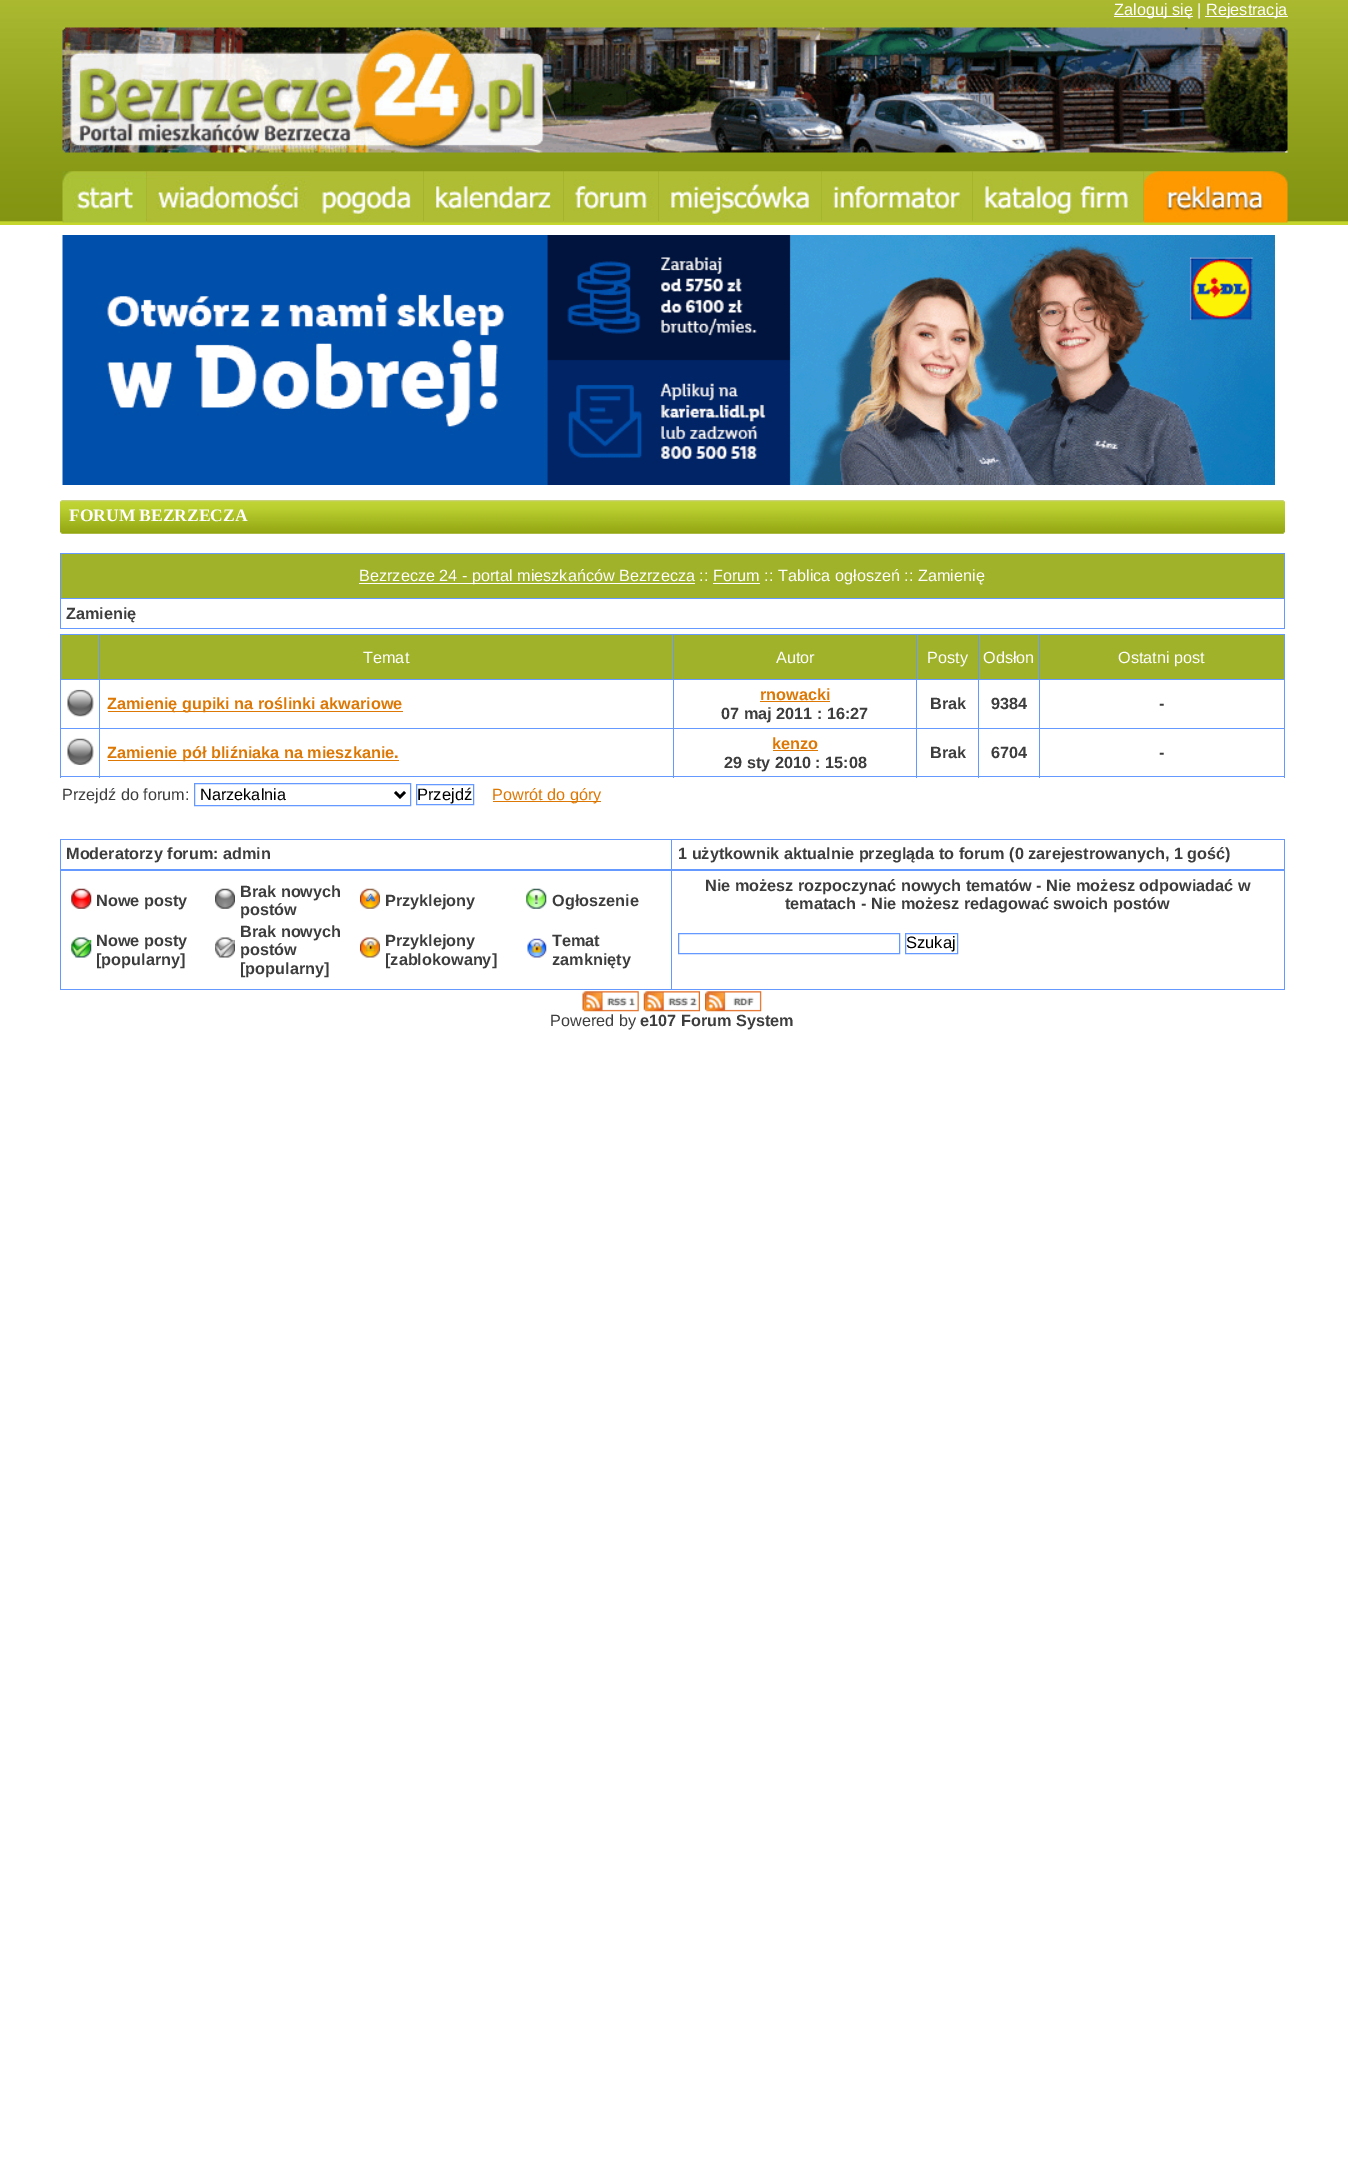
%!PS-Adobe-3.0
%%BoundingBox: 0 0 1348 2158
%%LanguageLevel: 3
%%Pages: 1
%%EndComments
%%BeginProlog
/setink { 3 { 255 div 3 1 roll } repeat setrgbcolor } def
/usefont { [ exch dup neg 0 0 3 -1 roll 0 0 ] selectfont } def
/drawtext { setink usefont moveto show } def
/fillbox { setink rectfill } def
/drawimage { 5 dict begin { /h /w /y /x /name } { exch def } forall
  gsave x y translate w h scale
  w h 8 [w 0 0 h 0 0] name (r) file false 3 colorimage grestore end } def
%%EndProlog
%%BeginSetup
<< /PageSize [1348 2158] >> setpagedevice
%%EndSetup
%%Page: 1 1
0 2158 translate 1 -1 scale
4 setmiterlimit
0 0 1348 2158 255 255 255 fillbox
(assets/img1.rgb) 0 0 1348 225 drawimage
1114 16 79 1 255 255 255 fillbox
(Zaloguj się |) 1114 15 /LiberationSans-Regular 16.25 255 255 255 drawtext
1205 16 83 1 255 255 255 fillbox
(Rejestracja) 1206 15 /LiberationSans-Regular 16.25 255 255 255 drawtext
(assets/img2.rgb) 62 27 1226 126 drawimage
(assets/img3.rgb) 62 171 85 52 drawimage
(assets/img4.rgb) 146 171 164 52 drawimage
(assets/img5.rgb) 310 171 114 52 drawimage
(assets/img6.rgb) 424 171 140 52 drawimage
(assets/img7.rgb) 564 171 95 52 drawimage
(assets/img8.rgb) 659 171 163 52 drawimage
(assets/img9.rgb) 821 171 152 52 drawimage
(assets/img10.rgb) 972 171 172 52 drawimage
(assets/img11.rgb) 1143 171 145 52 drawimage
(assets/img12.rgb) 62 235 1213 250 drawimage
(assets/img13.rgb) 60 500 1225 34 drawimage
(FORUM BEZRZECZA) 69 521 /LiberationSerif-Bold 17.5 255 255 255 drawtext
61 554 1223 44 160 178 42 fillbox
60 553 1225 1 102 153 255 fillbox
60 598 1225 1 102 153 255 fillbox
1284 598 1 31 102 153 255 fillbox
1284 553 1 46 102 153 255 fillbox
60 628 1225 1 102 153 255 fillbox
60 598 1 31 102 153 255 fillbox
60 553 1 46 102 153 255 fillbox
359 583 336 1 255 255 255 fillbox
(Bezrzecze 24 - portal mieszkańców Bezrzecza :: Forum :: Tablica ogłoszeń :: Zamienię) 359 581 /LiberationSans-Regular 16.25 255 255 255 drawtext
713 583 47 1 255 255 255 fillbox
(Zamienię) 66 619 /LiberationSans-Bold 16.25 61 61 61 drawtext
61 635 38 44 160 178 42 fillbox
1039 634 246 1 102 153 255 fillbox
1039 679 246 1 102 153 255 fillbox
1039 728 246 1 102 153 255 fillbox
1284 728 1 50 102 153 255 fillbox
1039 776 246 1 102 153 255 fillbox
1039 728 1 50 102 153 255 fillbox
978 728 62 1 102 153 255 fillbox
1039 679 1 50 102 153 255 fillbox
978 679 62 1 102 153 255 fillbox
1039 634 1 46 102 153 255 fillbox
978 634 62 1 102 153 255 fillbox
978 776 62 1 102 153 255 fillbox
978 728 1 50 102 153 255 fillbox
916 728 63 1 102 153 255 fillbox
978 679 1 50 102 153 255 fillbox
916 679 63 1 102 153 255 fillbox
978 634 1 46 102 153 255 fillbox
916 634 63 1 102 153 255 fillbox
674 635 304 44 160 178 42 fillbox
916 776 63 1 102 153 255 fillbox
916 728 1 50 102 153 255 fillbox
673 728 245 1 102 153 255 fillbox
916 679 1 50 102 153 255 fillbox
673 679 245 1 102 153 255 fillbox
916 634 1 46 102 153 255 fillbox
673 634 245 1 102 153 255 fillbox
673 776 245 1 102 153 255 fillbox
673 728 1 50 102 153 255 fillbox
99 728 575 1 102 153 255 fillbox
673 679 1 50 102 153 255 fillbox
99 679 575 1 102 153 255 fillbox
673 634 1 46 102 153 255 fillbox
99 634 575 1 102 153 255 fillbox
99 776 575 1 102 153 255 fillbox
99 728 1 50 102 153 255 fillbox
60 728 40 1 102 153 255 fillbox
99 679 1 50 102 153 255 fillbox
60 679 40 1 102 153 255 fillbox
99 634 1 46 102 153 255 fillbox
60 634 40 1 102 153 255 fillbox
60 776 40 1 102 153 255 fillbox
60 728 1 50 102 153 255 fillbox
60 679 1 50 102 153 255 fillbox
60 634 1 46 102 153 255 fillbox
100 635 573 44 160 178 42 fillbox
(Temat) 363 663 /LiberationSans-Regular 16.25 255 255 255 drawtext
(Autor) 776 663 /LiberationSans-Regular 16.25 255 255 255 drawtext
(Posty) 927 663 /LiberationSans-Regular 16.25 255 255 255 drawtext
979 635 60 44 160 178 42 fillbox
(Odsłon) 983 663 /LiberationSans-Regular 16.25 255 255 255 drawtext
1040 635 244 44 160 178 42 fillbox
1284 679 1 50 102 153 255 fillbox
1284 634 1 46 102 153 255 fillbox
(Ostatni post) 1118 663 /LiberationSans-Regular 16.25 255 255 255 drawtext
(assets/img14.rgb) 67 689 27 28 drawimage
108 711 295 1 220 120 3 fillbox
(Zamienię gupiki na roślinki akwariowe) 107 709 /LiberationSans-Bold 16.25 220 120 3 drawtext
(rnowacki) 760 700 /LiberationSans-Bold 16.25 220 120 3 drawtext
760 701 70 1 220 120 3 fillbox
(07 maj 2011 : 16:27) 721 719 /LiberationSans-Bold 16.25 61 61 61 drawtext
(Brak) 930 709 /LiberationSans-Bold 16.25 61 61 61 drawtext
(9384) 991 709 /LiberationSans-Bold 16.25 61 61 61 drawtext
(-) 1159 709 /LiberationSans-Bold 16.25 61 61 61 drawtext
(assets/img15.rgb) 67 738 27 27 drawimage
108 760 291 1 220 120 3 fillbox
(Zamienie pół bliźniaka na mieszkanie.) 107 758 /LiberationSans-Bold 16.25 220 120 3 drawtext
(kenzo) 772 749 /LiberationSans-Bold 16.25 220 120 3 drawtext
773 750 45 1 220 120 3 fillbox
(29 sty 2010 : 15:08) 724 768 /LiberationSans-Bold 16.25 61 61 61 drawtext
(Brak) 930 758 /LiberationSans-Bold 16.25 61 61 61 drawtext
(6704) 991 758 /LiberationSans-Bold 16.25 61 61 61 drawtext
(-) 1159 758 /LiberationSans-Bold 16.25 61 61 61 drawtext
(Przejdź do forum:) 62 800 /LiberationSans-Regular 16.25 61 61 61 drawtext
102 153 255 setink
194.5 783.5 216 22 rectstroke
0 0 0 setink
2.5 setlinewidth
395 792 moveto 400 797 lineto 405 792 lineto stroke
(Narzekalnia) 200 800 /LiberationSans-Regular 16.25 0 0 0 drawtext
102 153 255 setink
1 setlinewidth
416.5 784.5 57 20 rectstroke
(Przejdź) 417 800 /LiberationSans-Regular 16.5 0 0 0 drawtext
493 801 108 1 220 120 3 fillbox
(Powrót do góry) 492 800 /LiberationSans-Regular 16.25 220 120 3 drawtext
671 839 614 1 102 153 255 fillbox
1284 839 1 31 102 153 255 fillbox
671 869 614 2 102 153 255 fillbox
671 839 1 31 102 153 255 fillbox
60 839 613 1 102 153 255 fillbox
60 869 613 1 102 153 255 fillbox
60 839 1 31 102 153 255 fillbox
(Moderatorzy forum: admin) 66 859 /LiberationSans-Bold 16.25 61 61 61 drawtext
(1 użytkownik aktualnie przegląda to forum \(0 zarejestrowanych, 1 gość\)) 678 859 /LiberationSans-Bold 16.25 61 61 61 drawtext
1284 870 1 120 102 153 255 fillbox
671 989 614 1 102 153 255 fillbox
671 870 1 120 102 153 255 fillbox
60 870 613 1 102 153 255 fillbox
60 989 613 1 102 153 255 fillbox
60 870 1 120 102 153 255 fillbox
(assets/img16.rgb) 71 888 21 21 drawimage
(Nowe posty) 96 906 /LiberationSans-Bold 16.25 61 61 61 drawtext
(assets/img17.rgb) 215 888 20 21 drawimage
(Brak nowych) 240 897 /LiberationSans-Bold 16.25 61 61 61 drawtext
(postów) 240 915 /LiberationSans-Bold 16.25 61 61 61 drawtext
(assets/img18.rgb) 360 888 20 21 drawimage
(Przyklejony) 385 906 /LiberationSans-Bold 16.25 61 61 61 drawtext
(assets/img19.rgb) 526 888 21 21 drawimage
(Ogłoszenie) 552 906 /LiberationSans-Bold 16.25 61 61 61 drawtext
(assets/img20.rgb) 71 937 21 21 drawimage
(Nowe posty) 96 946 /LiberationSans-Bold 16.25 61 61 61 drawtext
([popularny]) 96 965 /LiberationSans-Bold 16.25 61 61 61 drawtext
(assets/img21.rgb) 215 937 20 21 drawimage
(Brak nowych) 240 937 /LiberationSans-Bold 16.25 61 61 61 drawtext
(postów) 240 955 /LiberationSans-Bold 16.25 61 61 61 drawtext
([popularny]) 240 974 /LiberationSans-Bold 16.25 61 61 61 drawtext
(assets/img22.rgb) 360 937 20 21 drawimage
(Przyklejony) 385 946 /LiberationSans-Bold 16.25 61 61 61 drawtext
([zablokowany]) 385 965 /LiberationSans-Bold 16.25 61 61 61 drawtext
(assets/img23.rgb) 527 938 20 20 drawimage
(Temat) 552 946 /LiberationSans-Bold 16.25 61 61 61 drawtext
(zamknięty) 552 965 /LiberationSans-Bold 16.25 61 61 61 drawtext
(Nie możesz rozpoczynać nowych tematów - Nie możesz odpowiadać w) 705 891 /LiberationSans-Bold 16.25 61 61 61 drawtext
(tematach - Nie możesz redagować swoich postów) 785 909 /LiberationSans-Bold 16.25 61 61 61 drawtext
102 153 255 setink
678.5 933.5 221 20 rectstroke
905.5 933.5 52 20 rectstroke
(Szukaj) 906 948 /LiberationSans-Regular 16.5 0 0 0 drawtext
(assets/img24.rgb) 582 991 57 21 drawimage
(assets/img25.rgb) 643 991 57 21 drawimage
(assets/img26.rgb) 705 991 57 21 drawimage
(Powered by) 550 1026 /LiberationSans-Regular 16.25 61 61 61 drawtext
(e107 Forum System) 640 1026 /LiberationSans-Bold 16.25 61 61 61 drawtext
showpage
%%EOF
